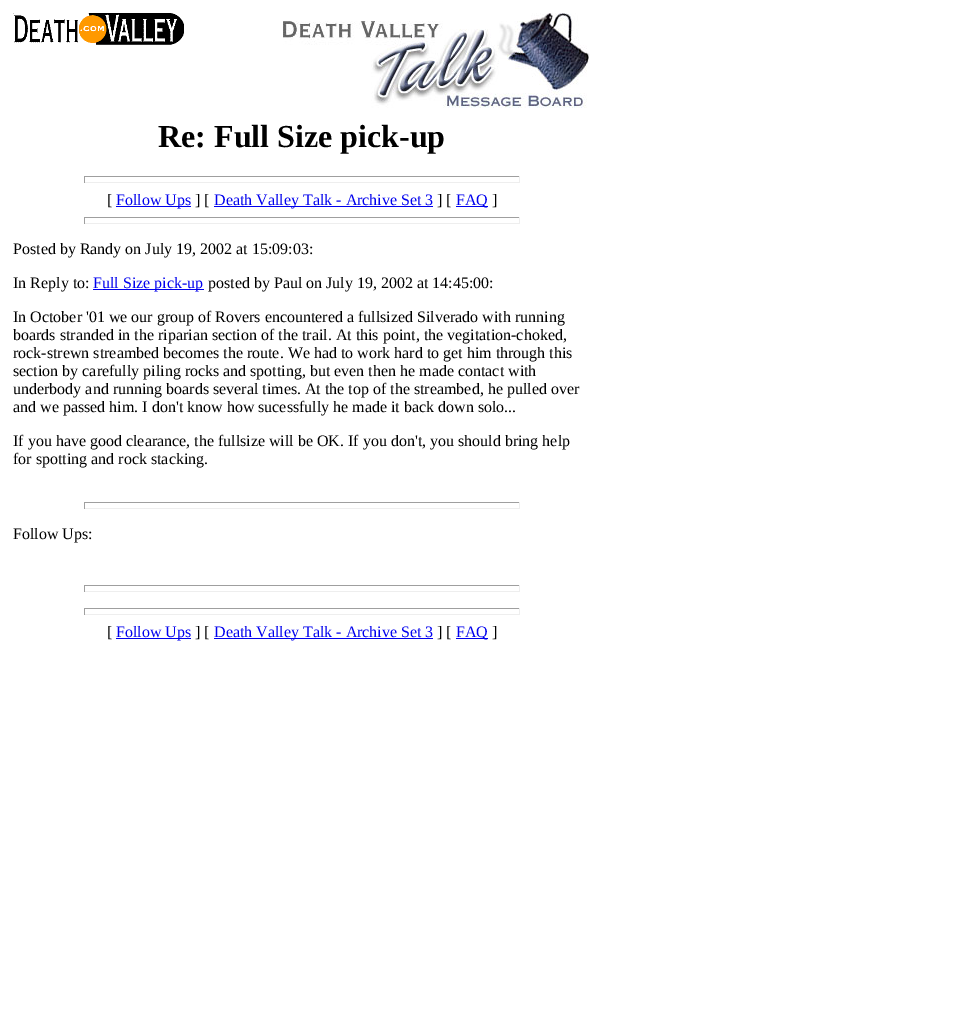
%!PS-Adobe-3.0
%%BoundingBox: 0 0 971 1013
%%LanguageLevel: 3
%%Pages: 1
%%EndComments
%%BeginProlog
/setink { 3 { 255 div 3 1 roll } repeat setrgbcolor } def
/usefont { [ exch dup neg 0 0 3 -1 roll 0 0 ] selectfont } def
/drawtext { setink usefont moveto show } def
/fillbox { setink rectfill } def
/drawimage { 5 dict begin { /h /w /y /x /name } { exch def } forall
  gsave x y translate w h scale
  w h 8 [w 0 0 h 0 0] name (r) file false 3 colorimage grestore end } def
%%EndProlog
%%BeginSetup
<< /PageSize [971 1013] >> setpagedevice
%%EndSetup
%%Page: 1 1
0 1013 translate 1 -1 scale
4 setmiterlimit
0 0 971 1013 255 255 255 fillbox
(assets/img1.rgb) 13 13 171 32 drawimage
(assets/img2.rgb) 283 13 307 95 drawimage
(Re: Full Size pick-up) 158 147 /LiberationSerif-Bold 32 0 0 0 drawtext
84 176 436 1 159 159 159 fillbox
519 176 1 7 238 238 238 fillbox
84 182 436 1 238 238 238 fillbox
84 176 1 7 159 159 159 fillbox
([) 107 205 /LiberationSerif-Regular 16 0 0 0 drawtext
116 206 75 1 0 0 238 fillbox
(Follow Ups) 116 205 /LiberationSerif-Regular 16 0 0 238 drawtext
(] [) 195 205 /LiberationSerif-Regular 16 0 0 0 drawtext
214 206 219 1 0 0 238 fillbox
(Death Valley Talk - Archive Set 3) 214 205 /LiberationSerif-Regular 16 0 0 238 drawtext
(] [) 437 205 /LiberationSerif-Regular 16 0 0 0 drawtext
456 206 32 1 0 0 238 fillbox
(FAQ) 456 205 /LiberationSerif-Regular 16 0 0 238 drawtext
(]) 492 205 /LiberationSerif-Regular 16 0 0 0 drawtext
84 217 436 1 159 159 159 fillbox
519 217 1 7 238 238 238 fillbox
84 223 436 1 238 238 238 fillbox
84 217 1 7 159 159 159 fillbox
(Posted by Randy on July 19, 2002 at 15:09:03:) 13 254 /LiberationSerif-Regular 16 0 0 0 drawtext
(In Reply to:) 13 288 /LiberationSerif-Regular 16 0 0 0 drawtext
93 289 111 1 0 0 238 fillbox
(Full Size pick-up) 93 288 /LiberationSerif-Regular 16 0 0 238 drawtext
(posted by Paul on July 19, 2002 at 14:45:00:) 208 288 /LiberationSerif-Regular 16 0 0 0 drawtext
(In October '01 we our group of Rovers encountered a fullsized Silverado with running) 13 322 /LiberationSerif-Regular 16 0 0 0 drawtext
(boards stranded in the riparian section of the trail. At this point, the vegitation-choked,) 13 340 /LiberationSerif-Regular 16 0 0 0 drawtext
(rock-strewn streambed becomes the route. We had to work hard to get him through this) 13 358 /LiberationSerif-Regular 16 0 0 0 drawtext
(section by carefully piling rocks and spotting, but even then he made contact with) 13 376 /LiberationSerif-Regular 16 0 0 0 drawtext
(underbody and running boards several times. At the top of the streambed, he pulled over) 13 394 /LiberationSerif-Regular 16 0 0 0 drawtext
(and we passed him. I don't know how sucessfully he made it back down solo...) 13 412 /LiberationSerif-Regular 16 0 0 0 drawtext
(If you have good clearance, the fullsize will be OK. If you don't, you should bring help) 13 446 /LiberationSerif-Regular 16 0 0 0 drawtext
(for spotting and rock stacking.) 13 464 /LiberationSerif-Regular 16 0 0 0 drawtext
84 502 436 1 159 159 159 fillbox
519 502 1 7 238 238 238 fillbox
84 508 436 1 238 238 238 fillbox
84 502 1 7 159 159 159 fillbox
(Follow Ups:) 13 539 /LiberationSerif-Regular 16 0 0 0 drawtext
84 585 436 1 159 159 159 fillbox
519 585 1 7 238 238 238 fillbox
84 591 436 1 238 238 238 fillbox
84 585 1 7 159 159 159 fillbox
84 608 436 1 159 159 159 fillbox
519 608 1 7 238 238 238 fillbox
84 614 436 1 238 238 238 fillbox
84 608 1 7 159 159 159 fillbox
([) 107 637 /LiberationSerif-Regular 16 0 0 0 drawtext
116 638 75 1 0 0 238 fillbox
(Follow Ups) 116 637 /LiberationSerif-Regular 16 0 0 238 drawtext
(] [) 195 637 /LiberationSerif-Regular 16 0 0 0 drawtext
214 638 219 1 0 0 238 fillbox
(Death Valley Talk - Archive Set 3) 214 637 /LiberationSerif-Regular 16 0 0 238 drawtext
(] [) 437 637 /LiberationSerif-Regular 16 0 0 0 drawtext
456 638 32 1 0 0 238 fillbox
(FAQ) 456 637 /LiberationSerif-Regular 16 0 0 238 drawtext
(]) 492 637 /LiberationSerif-Regular 16 0 0 0 drawtext
showpage
%%EOF
